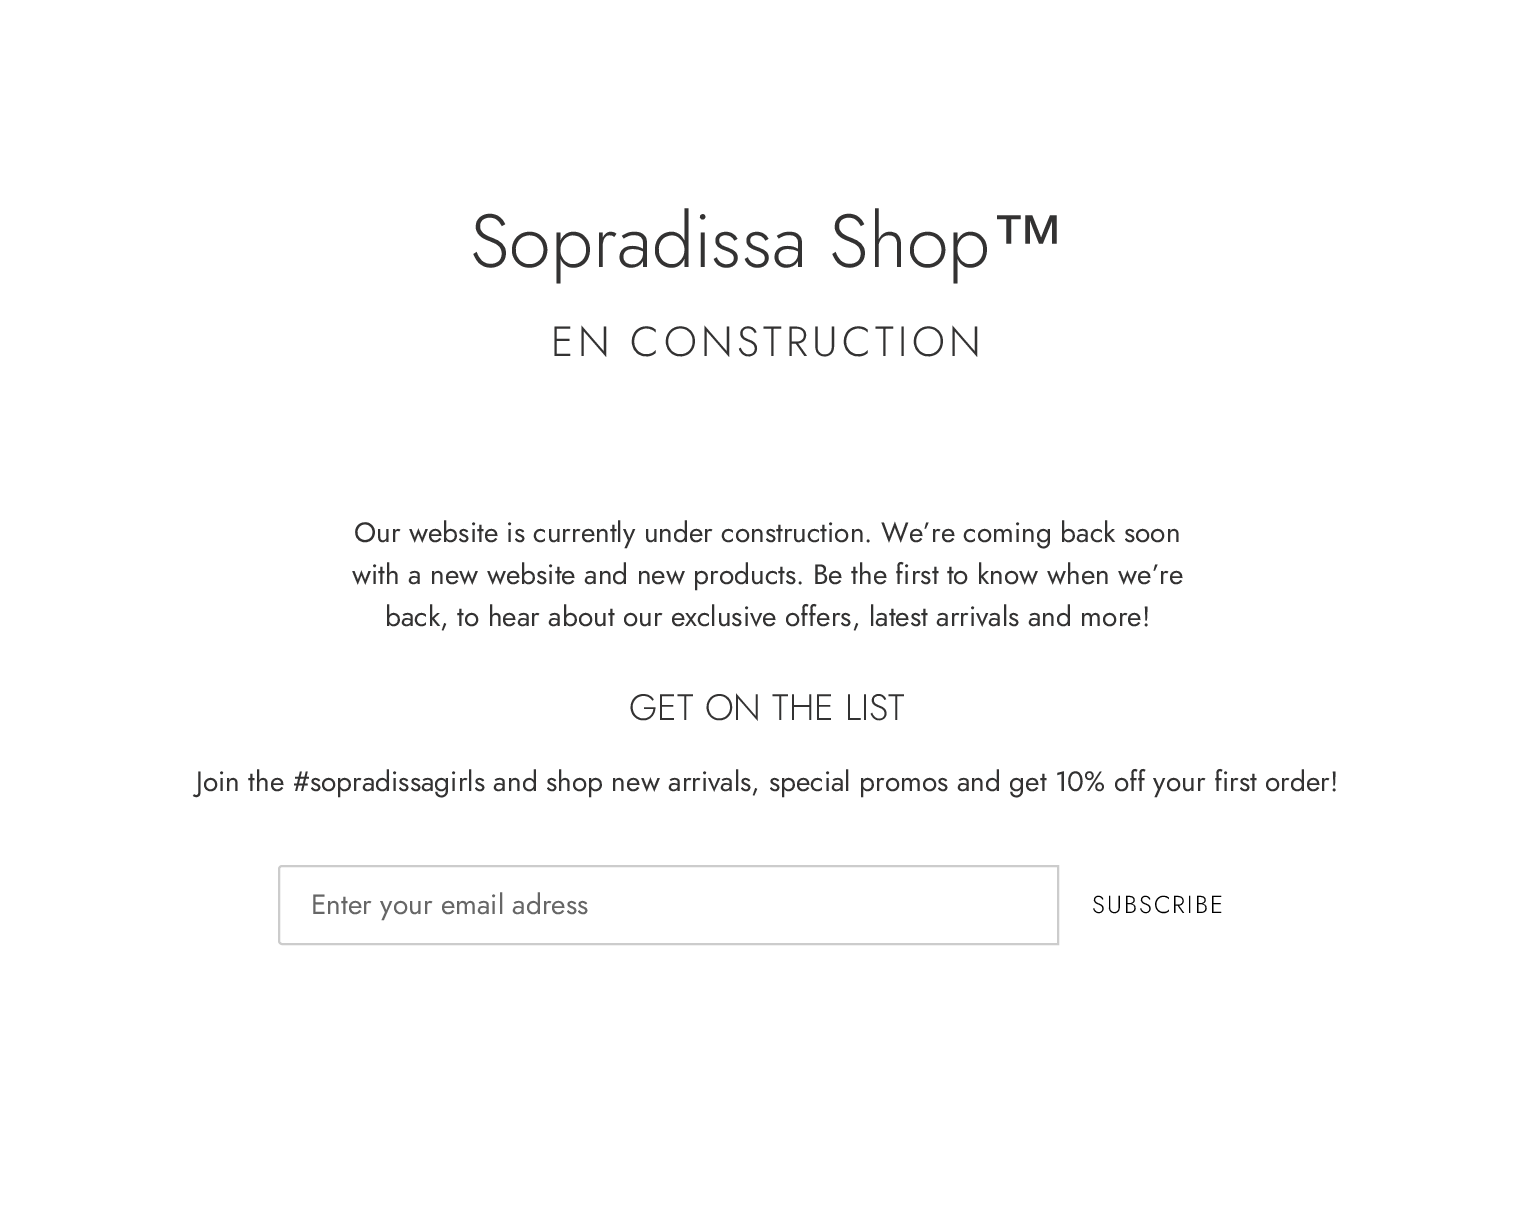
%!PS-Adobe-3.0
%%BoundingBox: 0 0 1534 1208
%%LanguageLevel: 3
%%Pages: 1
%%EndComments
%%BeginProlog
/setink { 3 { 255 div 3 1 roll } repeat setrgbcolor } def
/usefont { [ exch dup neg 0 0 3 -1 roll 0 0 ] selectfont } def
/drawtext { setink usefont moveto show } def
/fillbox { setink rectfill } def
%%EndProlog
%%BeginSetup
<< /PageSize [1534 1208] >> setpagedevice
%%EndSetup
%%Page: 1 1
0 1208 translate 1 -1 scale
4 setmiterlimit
0 0 1534 1208 255 255 255 fillbox
(Sopradissa Shop) 470 267 /Jost-Light 75.25 51 50 50 drawtext
(™) 990 267 /LiberationSans-Regular 75.25 51 50 50 drawtext
/Jost-Light 42 usefont
551 356 moveto 4.25 0 (EN CONSTRUCTION) ashow
(Our website is currently under construction. We’re coming back soon) 354 542 /Jost-Regular 28 51 50 50 drawtext
(with a new website and new products. Be the first to know when we’re) 352 584 /Jost-Regular 28 51 50 50 drawtext
(back, to hear about our exclusive offers, latest arrivals and more!) 385 626 /Jost-Regular 28 51 50 50 drawtext
(GET ON THE LIST) 629 720 /Jost-Light 36.75 51 50 50 drawtext
(Join the #sopradissagirls and shop new arrivals, special promos and get 10% off your first order!) 196 791 /Jost-Regular 28 51 50 50 drawtext
204 204 204 setink
2 setlinewidth
282 866 moveto 1058 866 lineto 1058 944 lineto 282 944 lineto 280.5 944 279 942.5 279 941 curveto 279 869 lineto 279 867.5 280.5 866 282 866 curveto closepath stroke
(Enter your email adress) 311 914 /Jost-Regular 28 102 102 102 drawtext
/Jost-Light 24.5 usefont
0 0 0 setink
1092 913 moveto 2 0 (SUBSCRIBE) ashow
showpage
%%EOF
